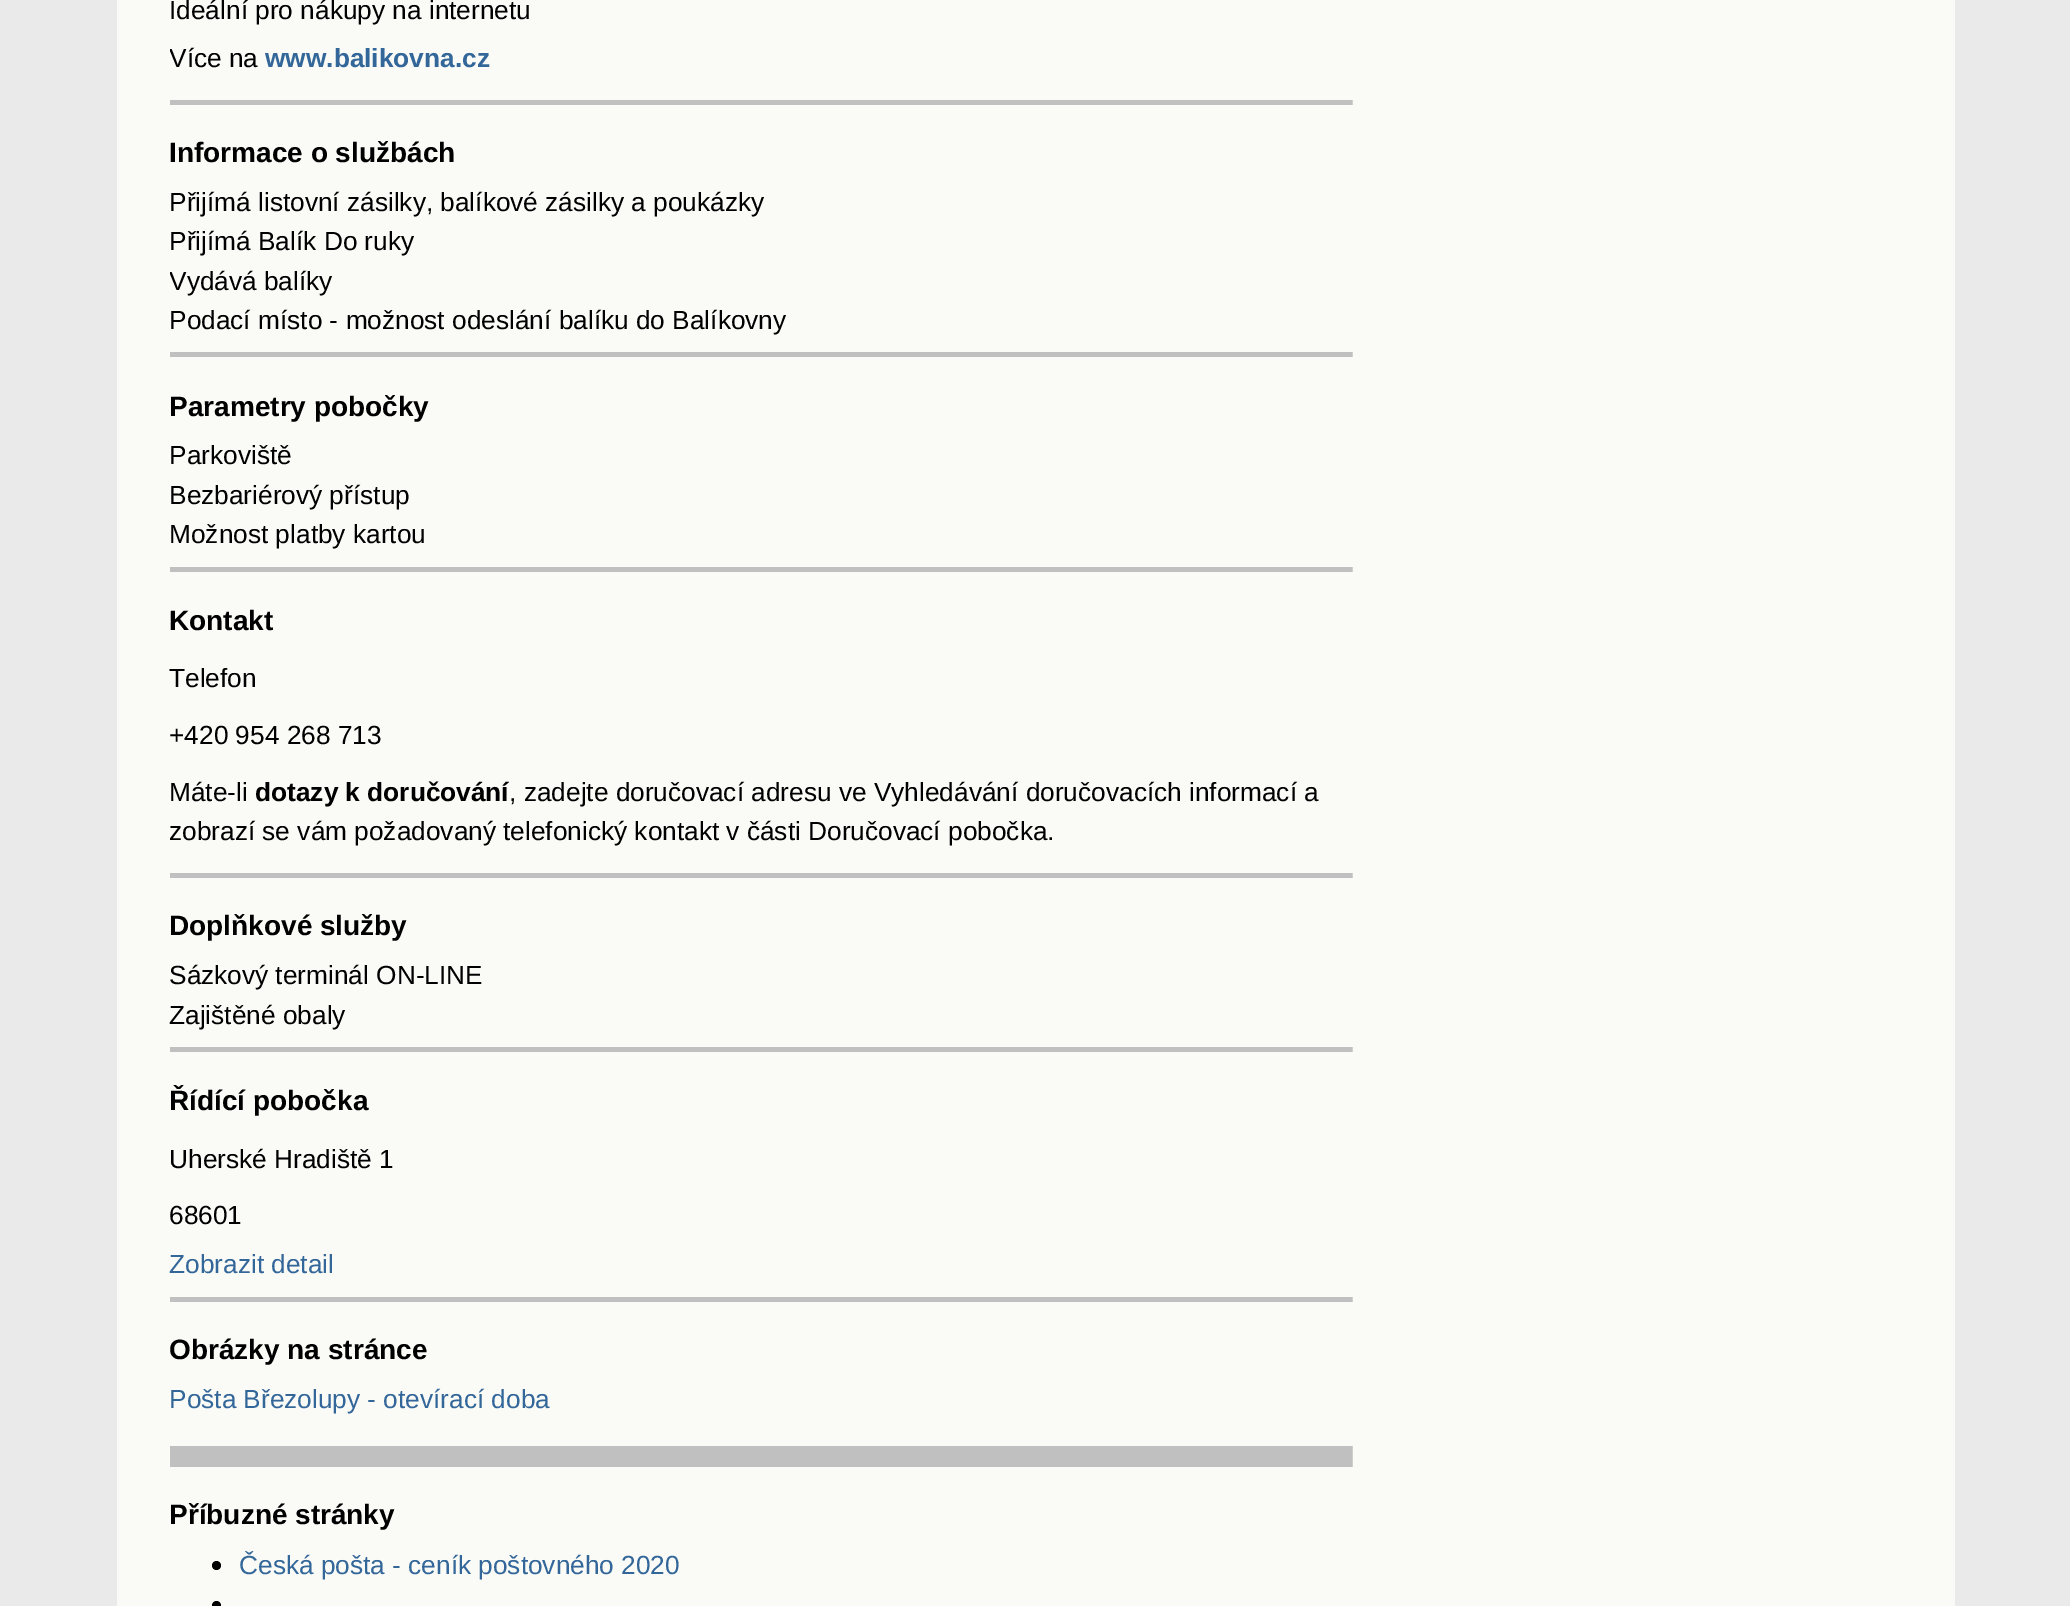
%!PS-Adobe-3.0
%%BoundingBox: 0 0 2070 1606
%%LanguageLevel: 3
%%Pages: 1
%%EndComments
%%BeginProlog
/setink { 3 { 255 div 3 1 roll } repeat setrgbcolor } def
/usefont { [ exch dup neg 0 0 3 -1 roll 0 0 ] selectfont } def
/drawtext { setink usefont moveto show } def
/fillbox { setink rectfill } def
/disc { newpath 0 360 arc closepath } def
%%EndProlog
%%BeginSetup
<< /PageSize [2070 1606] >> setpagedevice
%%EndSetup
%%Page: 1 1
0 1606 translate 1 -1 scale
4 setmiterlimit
0 0 2070 1606 234 234 234 fillbox
117 0 1838 1606 250 251 247 fillbox
(Ideální pro nákupy na internetu) 169 19 /LiberationSans-Regular 26.25 0 0 0 drawtext
gsave
170 0 1183 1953 rectclip
(Více na) 169 67 /LiberationSans-Regular 26.25 0 0 0 drawtext
grestore
(www.balikovna.cz) 265 67 /LiberationSans-Bold 26.25 51 102 153 drawtext
170 100 1183 5 192 192 192 fillbox
1352 100 1 5 207 207 206 fillbox
(Informace o službách) 169 162 /LiberationSans-Bold 28 0 0 0 drawtext
(Přijímá listovní zásilky, balíkové zásilky a poukázky) 169 211 /LiberationSans-Regular 26.25 0 0 0 drawtext
(Přijímá Balík Do ruky) 169 250 /LiberationSans-Regular 26.25 0 0 0 drawtext
gsave
170 0 1183 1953 rectclip
(Vydává balíky) 169 290 /LiberationSans-Regular 26.25 0 0 0 drawtext
grestore
(Podací místo - možnost odeslání balíku do Balíkovny) 169 329 /LiberationSans-Regular 26.25 0 0 0 drawtext
170 352 1183 5 192 192 192 fillbox
1352 352 1 5 207 207 206 fillbox
(Parametry pobočky) 169 416 /LiberationSans-Bold 28 0 0 0 drawtext
(Parkoviště) 169 464 /LiberationSans-Regular 26.25 0 0 0 drawtext
(Bezbariérový přístup) 169 504 /LiberationSans-Regular 26.25 0 0 0 drawtext
(Možnost platby kartou) 169 543 /LiberationSans-Regular 26.25 0 0 0 drawtext
170 567 1183 5 192 192 192 fillbox
1352 567 1 5 207 207 206 fillbox
(Kontakt) 169 630 /LiberationSans-Bold 28 0 0 0 drawtext
(Telefon) 169 687 /LiberationSans-Regular 26.25 0 0 0 drawtext
(+420 954 268 713) 169 744 /LiberationSans-Regular 26.25 0 0 0 drawtext
(Máte-li) 169 801 /LiberationSans-Regular 26.25 0 0 0 drawtext
(dotazy k doručování) 255 801 /LiberationSans-Bold 26.25 0 0 0 drawtext
(, zadejte doručovací adresu ve Vyhledávání doručovacích informací a) 509 801 /LiberationSans-Regular 26.25 0 0 0 drawtext
(zobrazí se vám požadovaný telefonický kontakt v části Doručovací pobočka.) 169 840 /LiberationSans-Regular 26.25 0 0 0 drawtext
170 873 1183 5 192 192 192 fillbox
1352 873 1 5 207 207 206 fillbox
(Doplňkové služby) 169 935 /LiberationSans-Bold 28 0 0 0 drawtext
(Sázkový terminál ON-LINE) 169 984 /LiberationSans-Regular 26.25 0 0 0 drawtext
(Zajištěné obaly) 169 1024 /LiberationSans-Regular 26.25 0 0 0 drawtext
170 1047 1183 5 192 192 192 fillbox
1352 1047 1 5 207 207 206 fillbox
(Řídící pobočka) 169 1110 /LiberationSans-Bold 28 0 0 0 drawtext
(Uherské Hradiště 1) 169 1168 /LiberationSans-Regular 26.25 0 0 0 drawtext
(68601) 169 1224 /LiberationSans-Regular 26.25 0 0 0 drawtext
(Zobrazit detail) 169 1273 /LiberationSans-Regular 26.25 51 102 153 drawtext
170 1297 1183 5 192 192 192 fillbox
1352 1297 1 5 207 207 206 fillbox
(Obrázky na stránce) 169 1359 /LiberationSans-Bold 28 0 0 0 drawtext
(Pošta Březolupy - otevírací doba) 169 1408 /LiberationSans-Regular 26.25 51 102 153 drawtext
170 1446 1182 21 192 192 192 fillbox
1352 1446 1 21 207 207 206 fillbox
(Příbuzné stránky) 169 1524 /LiberationSans-Bold 28 0 0 0 drawtext
216.5 1565.5 4.5 disc fill
(Česká pošta - ceník poštovného 2020) 239 1574 /LiberationSans-Regular 26.25 51 102 153 drawtext
0 0 0 setink
216.5 1605.5 4.5 disc fill
showpage
%%EOF
